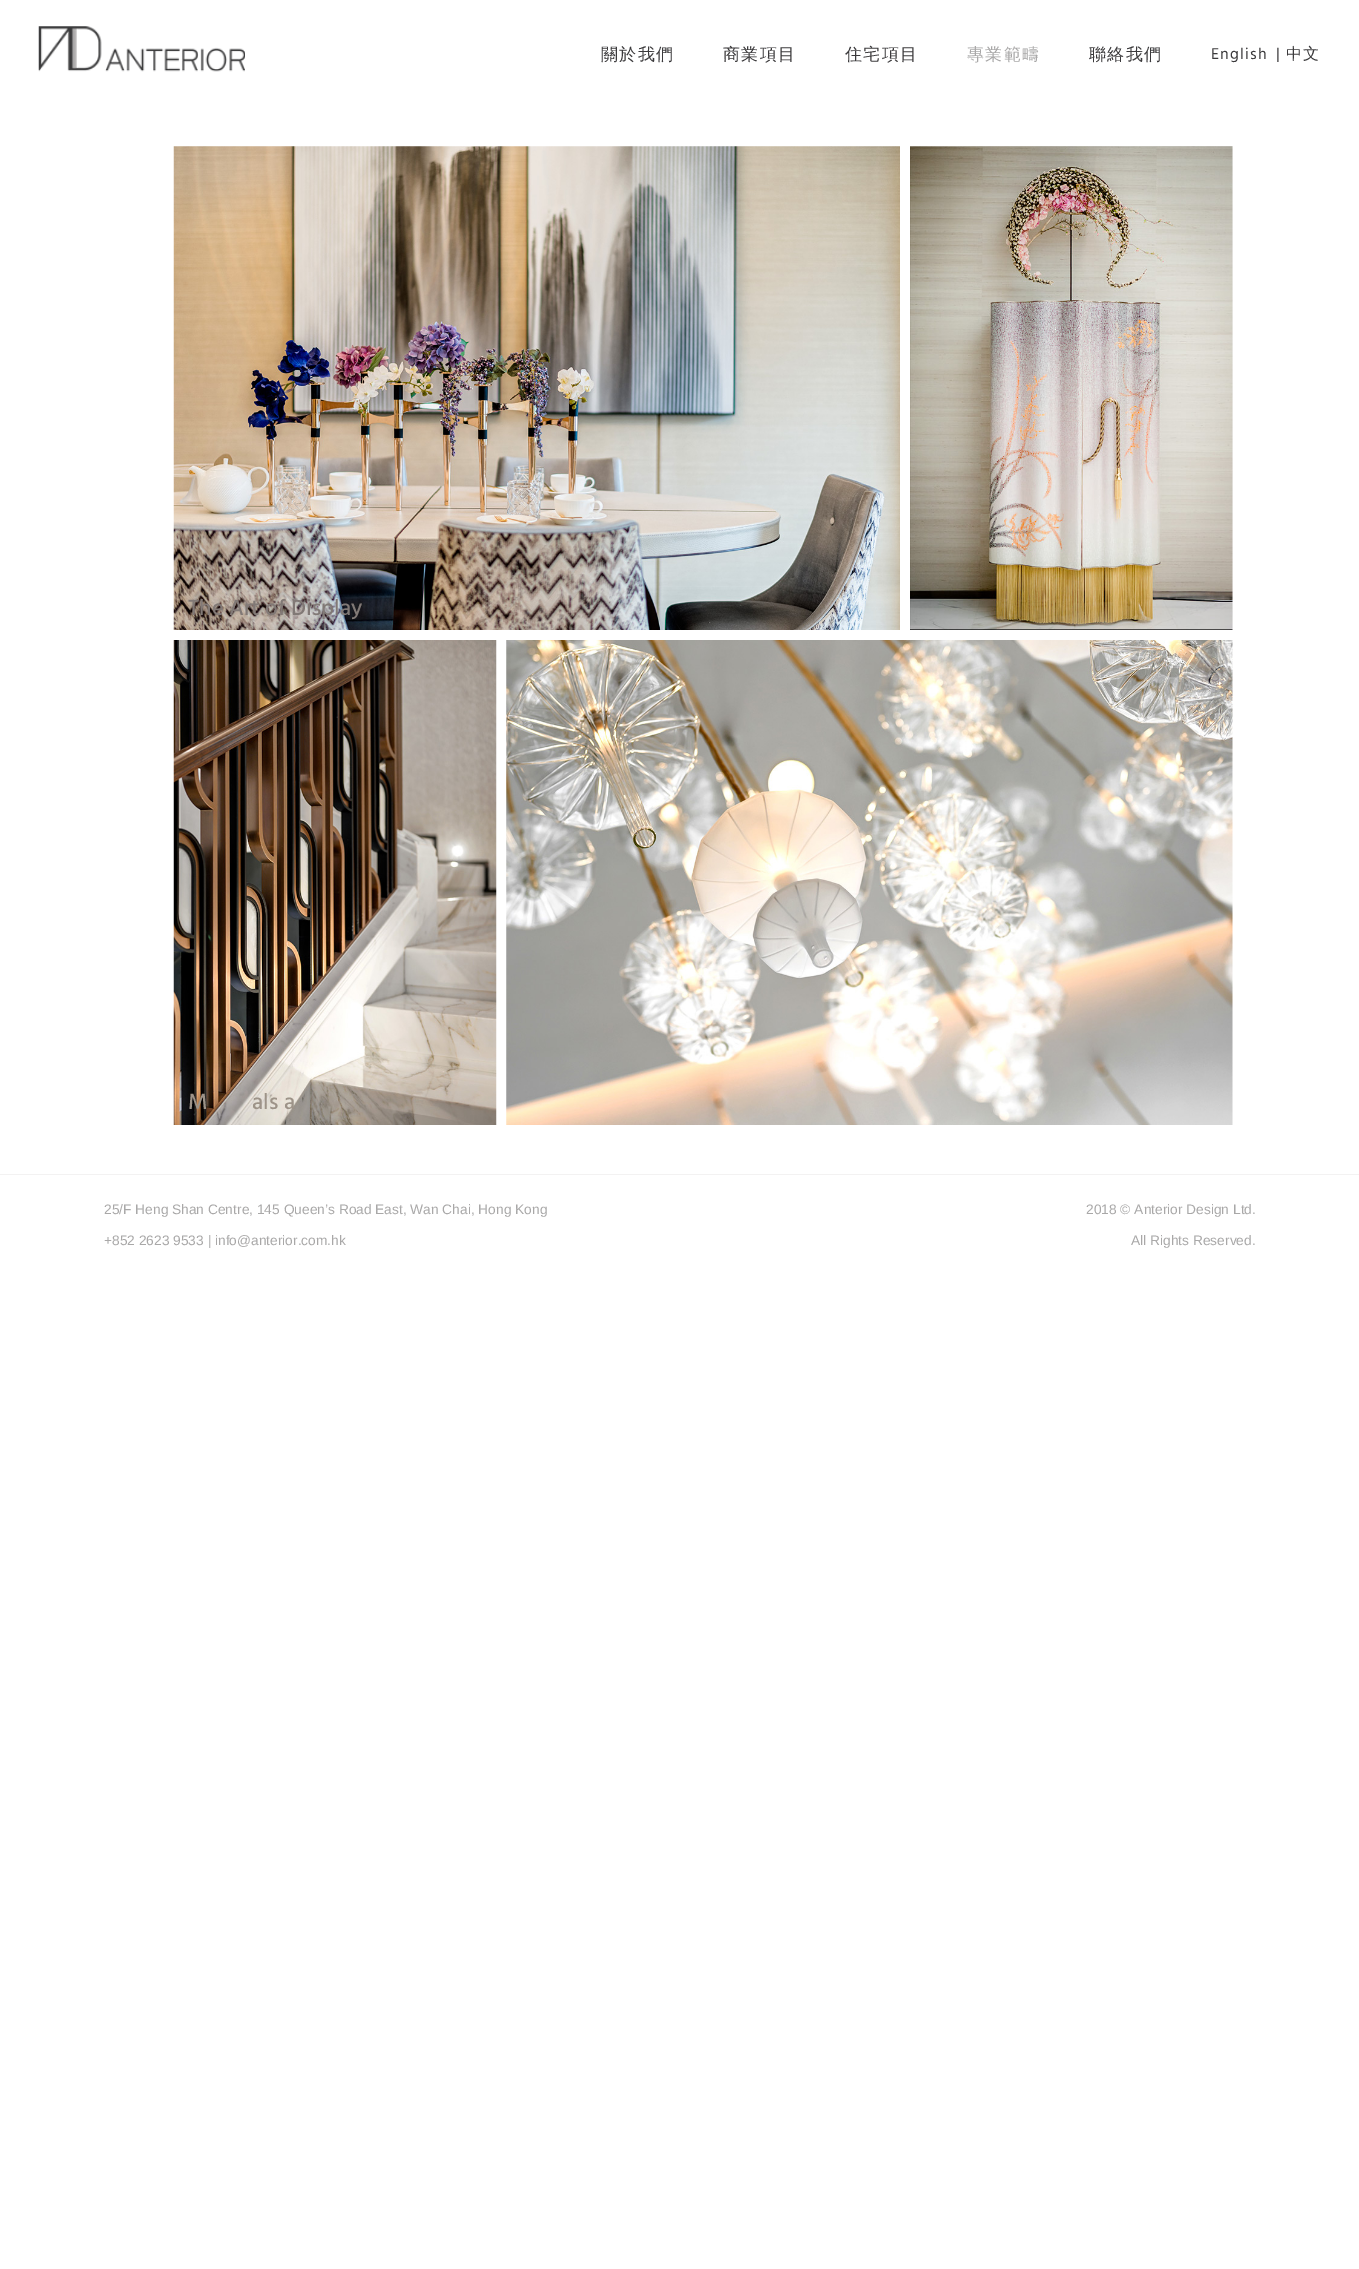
%!PS-Adobe-3.0
%%BoundingBox: 0 0 1359 2269
%%LanguageLevel: 3
%%Pages: 1
%%EndComments
%%BeginProlog
/setink { 3 { 255 div 3 1 roll } repeat setrgbcolor } def
/usefont { [ exch dup neg 0 0 3 -1 roll 0 0 ] selectfont } def
/drawtext { setink usefont moveto show } def
/fillbox { setink rectfill } def
/drawimage { 5 dict begin { /h /w /y /x /name } { exch def } forall
  gsave x y translate w h scale
  w h 8 [w 0 0 h 0 0] name (r) file false 3 colorimage grestore end } def
%%EndProlog
%%BeginSetup
<< /PageSize [1359 2269] >> setpagedevice
%%EndSetup
%%Page: 1 1
0 2269 translate 1 -1 scale
4 setmiterlimit
0 0 1359 2269 255 255 255 fillbox
(assets/img1.rgb) 38 26 207 46 drawimage
/WenQuanYiZenHei-Medium 17 usefont
59 58 60 setink
601 60 moveto 1.25 0 (關於我們) ashow
723 60 moveto 1.25 0 (商業項目) ashow
845 60 moveto 1.25 0 (住宅項目) ashow
169 168 168 setink
967 60 moveto 1.25 0 (專業範疇) ashow
59 58 60 setink
1089 60 moveto 1.25 0 (聯絡我們) ashow
/Hind-Regular 16 usefont
1211 59 moveto 1.25 0 (English) ashow
1276 59 moveto 1.25 0 (|) ashow
/WenQuanYiZenHei-Medium 16 usefont
1286 59 moveto 1.25 0 (中文) ashow
(assets/img2.rgb) 173 146 727 484 drawimage
(The Art of Display) 188 615 /Hind-Medium 22.5 129 121 118 drawtext
(assets/img3.rgb) 910 146 323 484 drawimage
(assets/img4.rgb) 173 640 324 485 drawimage
(M) 188 1109 /Hind-Medium 22.5 157 147 136 drawtext
(als a) 252 1109 /Hind-Medium 22.5 157 147 136 drawtext
(assets/img5.rgb) 506 640 727 485 drawimage
0 1174 1359 1 243 242 242 fillbox
(25/F Heng Shan Centre, 145 Queen’s Road East, Wan Chai, Hong Kong) 104 1214 /LiberationSans-Regular 13.75 169 168 168 drawtext
(+852 2623 9533 | info@anterior.com.hk) 104 1245 /LiberationSans-Regular 13.75 169 168 168 drawtext
(2018 © Anterior Design Ltd.) 1086 1214 /LiberationSans-Regular 13.75 169 168 168 drawtext
(All Rights Reserved.) 1131 1245 /LiberationSans-Regular 13.75 169 168 168 drawtext
showpage
%%EOF
